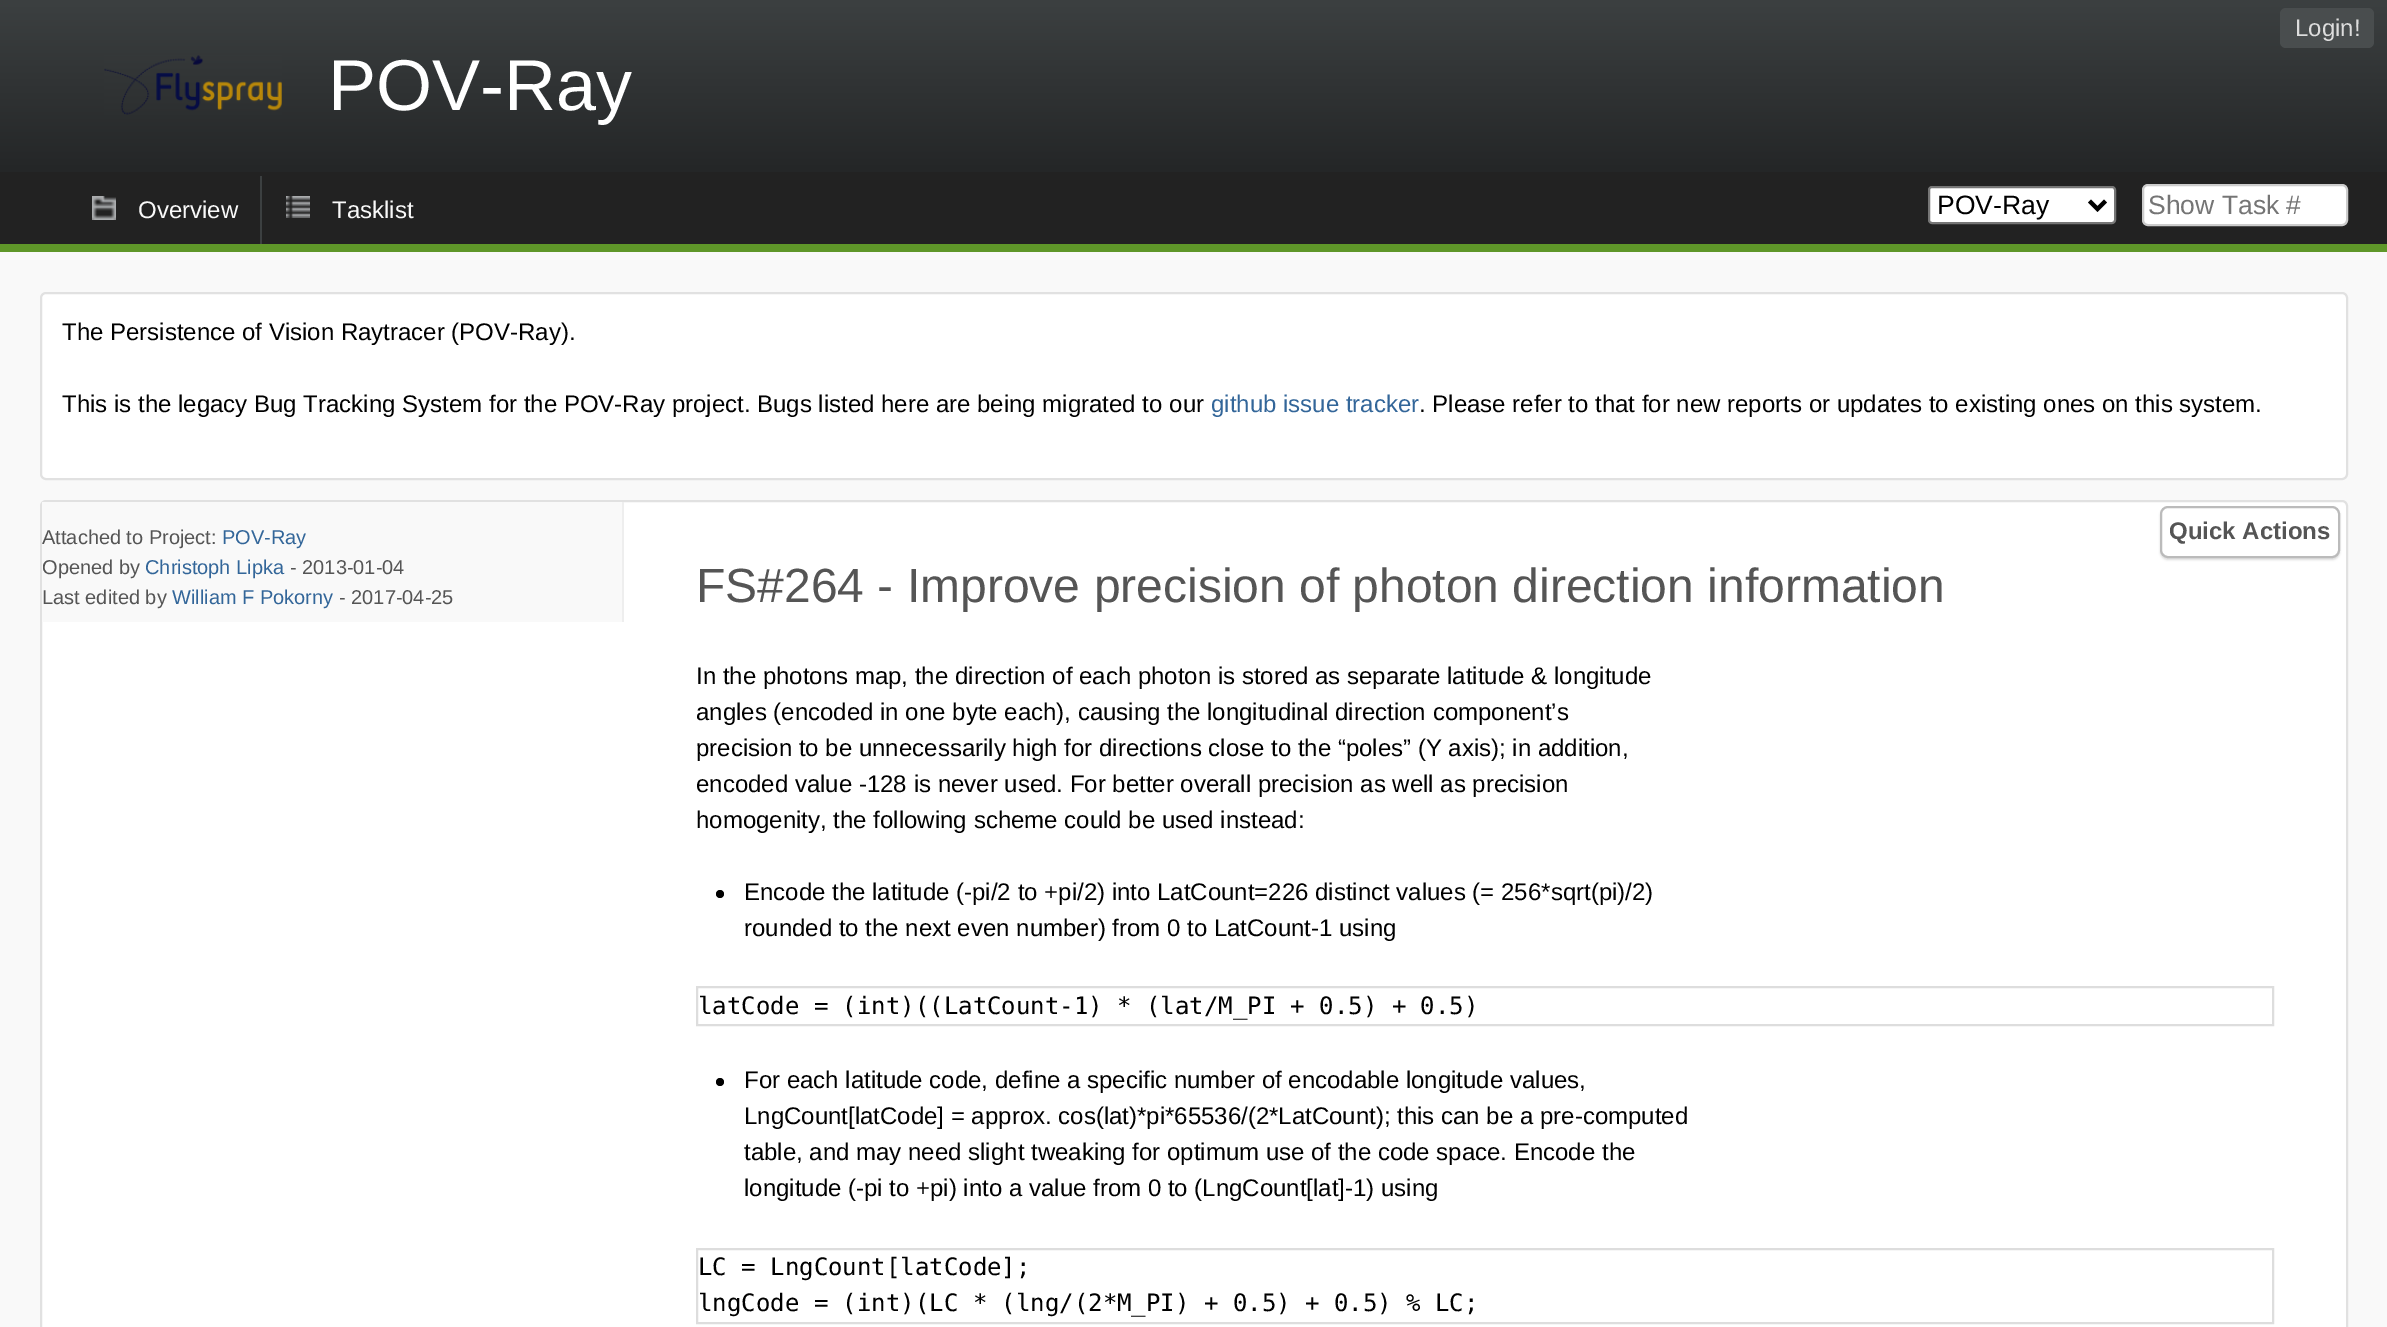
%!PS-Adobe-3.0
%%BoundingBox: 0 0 2387 1327
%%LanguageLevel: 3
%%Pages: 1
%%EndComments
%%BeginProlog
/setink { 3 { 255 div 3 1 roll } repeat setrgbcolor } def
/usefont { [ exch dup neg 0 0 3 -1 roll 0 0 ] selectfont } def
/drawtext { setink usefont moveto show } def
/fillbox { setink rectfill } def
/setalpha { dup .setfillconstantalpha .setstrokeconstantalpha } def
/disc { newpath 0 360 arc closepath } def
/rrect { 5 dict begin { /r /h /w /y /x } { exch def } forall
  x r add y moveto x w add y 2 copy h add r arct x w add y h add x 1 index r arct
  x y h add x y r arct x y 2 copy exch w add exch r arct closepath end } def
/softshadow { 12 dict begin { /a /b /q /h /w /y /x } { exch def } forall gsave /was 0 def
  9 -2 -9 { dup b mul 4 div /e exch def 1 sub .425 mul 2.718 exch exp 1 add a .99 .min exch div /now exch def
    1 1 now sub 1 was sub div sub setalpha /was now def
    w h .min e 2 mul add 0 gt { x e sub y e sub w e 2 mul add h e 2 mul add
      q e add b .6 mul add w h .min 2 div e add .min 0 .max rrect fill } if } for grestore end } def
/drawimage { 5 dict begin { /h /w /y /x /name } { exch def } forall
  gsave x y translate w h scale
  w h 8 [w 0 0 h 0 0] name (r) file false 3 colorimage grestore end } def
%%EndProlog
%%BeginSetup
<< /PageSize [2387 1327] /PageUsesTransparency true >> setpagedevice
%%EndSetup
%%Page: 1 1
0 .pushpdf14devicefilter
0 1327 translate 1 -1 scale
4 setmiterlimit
0 0 2387 1327 249 249 249 fillbox
gsave 0 0 moveto 2387 0 lineto 2387 172 lineto 0 172 lineto closepath clip newpath
<< /ShadingType 2 /ColorSpace /DeviceRGB /Coords [1194 0 1194 172] /Extend [true true] /Function << /FunctionType 2 /Domain [0 1] /C0 [0.235 0.251 0.255] /C1 [0.141 0.149 0.153] /N 1 >> >> shfill grestore
73 77 78 setink
2280 8 94 40 6 rrect fill
(Login!) 2295 36 /LiberationSans-Regular 24 221 221 221 drawtext
(assets/img1.rgb) 104 55 178 60 drawimage
(POV-Ray) 328 110 /LiberationSans-Regular 72 255 255 255 drawtext
0 172 2387 72 34 34 34 fillbox
0 244 2387 8 95 151 41 fillbox
(assets/img2.rgb) 92 196 24 24 drawimage
(Overview) 138 218 /LiberationSans-Regular 24 249 249 249 drawtext
(assets/img3.rgb) 286 196 24 22 drawimage
260 176 2 68 60 64 65 fillbox
(Tasklist) 332 218 /LiberationSans-Regular 24 249 249 249 drawtext
255 255 255 setink
1929 187 186 36 3 rrect gsave fill grestore
118 118 118 setink
2 setlinewidth
stroke
0 0 0 setink
4 setlinewidth
2089.5 201 moveto 2097.5 209 lineto 2105.5 201 lineto stroke
(POV-Ray) 1937 214 /LiberationSans-Regular 26.5 0 0 0 drawtext
255 255 255 setink
2143 185 204 40 5 rrect gsave fill grestore
204 204 204 setink
2 setlinewidth
stroke
(Show Task #) 2148 214 /LiberationSans-Regular 26.5 117 117 117 drawtext
255 255 255 setink
41 293 2306 186 5 rrect gsave fill grestore
225 225 225 setink
stroke
(The Persistence of Vision Raytracer \(POV-Ray\).) 62 340 /LiberationSans-Regular 24 0 0 0 drawtext
(This is the legacy Bug Tracking System for the POV-Ray project. Bugs listed here are being migrated to our) 62 412 /LiberationSans-Regular 24 0 0 0 drawtext
(github issue tracker) 1211 412 /LiberationSans-Regular 24 51 102 153 drawtext
(. Please refer to that for new reports or updates to existing ones on this system.) 1419 412 /LiberationSans-Regular 24 0 0 0 drawtext
255 255 255 setink
41 501 2306 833 5 rrect gsave fill grestore
225 225 225 setink
stroke
42 502 580 120 249 249 249 fillbox
622 502 2 120 238 238 238 fillbox
(Attached to Project:) 42 544 /LiberationSans-Regular 20 85 85 85 drawtext
(POV-Ray) 222 544 /LiberationSans-Regular 20 51 102 153 drawtext
(Opened by) 42 574 /LiberationSans-Regular 20 85 85 85 drawtext
(Christoph Lipka) 145 574 /LiberationSans-Regular 20 51 102 153 drawtext
(- 2013-01-04) 290 574 /LiberationSans-Regular 20 85 85 85 drawtext
(Last edited by) 42 604 /LiberationSans-Regular 20 85 85 85 drawtext
(William F Pokorny) 172 604 /LiberationSans-Regular 20 51 102 153 drawtext
(- 2017-04-25) 339 604 /LiberationSans-Regular 20 85 85 85 drawtext
(FS#264 - Improve precision of photon direction information) 696 602 /LiberationSans-Regular 48 85 85 85 drawtext
(In the photons map, the direction of each photon is stored as separate latitude & longitude) 696 684 /LiberationSans-Regular 24 0 0 0 drawtext
(angles \(encoded in one byte each\), causing the longitudinal direction component’s) 696 720 /LiberationSans-Regular 24 0 0 0 drawtext
(precision to be unnecessarily high for directions close to the “poles” \(Y axis\); in addition,) 696 756 /LiberationSans-Regular 24 0 0 0 drawtext
(encoded value -128 is never used. For better overall precision as well as precision) 696 792 /LiberationSans-Regular 24 0 0 0 drawtext
(homogenity, the following scheme could be used instead:) 696 828 /LiberationSans-Regular 24 0 0 0 drawtext
720 894 4 disc fill
(Encode the latitude \(-pi/2 to +pi/2\) into LatCount=226 distinct values \(= 256*sqrt\(pi\)/2\)) 744 900 /LiberationSans-Regular 24 0 0 0 drawtext
(rounded to the next even number\) from 0 to LatCount-1 using) 744 936 /LiberationSans-Regular 24 0 0 0 drawtext
221 221 221 setink
697 987 1576 38 rectstroke
(latCode = \(int\)\(\(LatCount-1\) * \(lat/M_PI + 0.5\) + 0.5\)) 698 1014 /DejaVuSansMono-Regular 24 0 0 0 drawtext
720 1082 4 disc fill
(For each latitude code, define a specific number of encodable longitude values,) 744 1088 /LiberationSans-Regular 24 0 0 0 drawtext
(LngCount[latCode] = approx. cos\(lat\)*pi*65536/\(2*LatCount\); this can be a pre-computed) 744 1124 /LiberationSans-Regular 24 0 0 0 drawtext
(table, and may need slight tweaking for optimum use of the code space. Encode the) 744 1160 /LiberationSans-Regular 24 0 0 0 drawtext
(longitude \(-pi to +pi\) into a value from 0 to \(LngCount[lat]-1\) using) 744 1196 /LiberationSans-Regular 24 0 0 0 drawtext
221 221 221 setink
697 1249 1576 74 rectstroke
(LC = LngCount[latCode];) 698 1275 /DejaVuSansMono-Regular 24 0 0 0 drawtext
(lngCode = \(int\)\(LC * \(lng/\(2*M_PI\) + 0.5\) + 0.5\) % LC;) 698 1311 /DejaVuSansMono-Regular 24 0 0 0 drawtext
221 221 221 setink
2160 508 180 52 8 1 1 softshadow
255 255 255 setink
2161 507 178 50 7 rrect gsave fill grestore
187 187 187 setink
stroke
(Quick Actions) 2169 539 /LiberationSans-Bold 24 85 85 85 drawtext
.poppdf14devicefilter showpage
%%EOF
